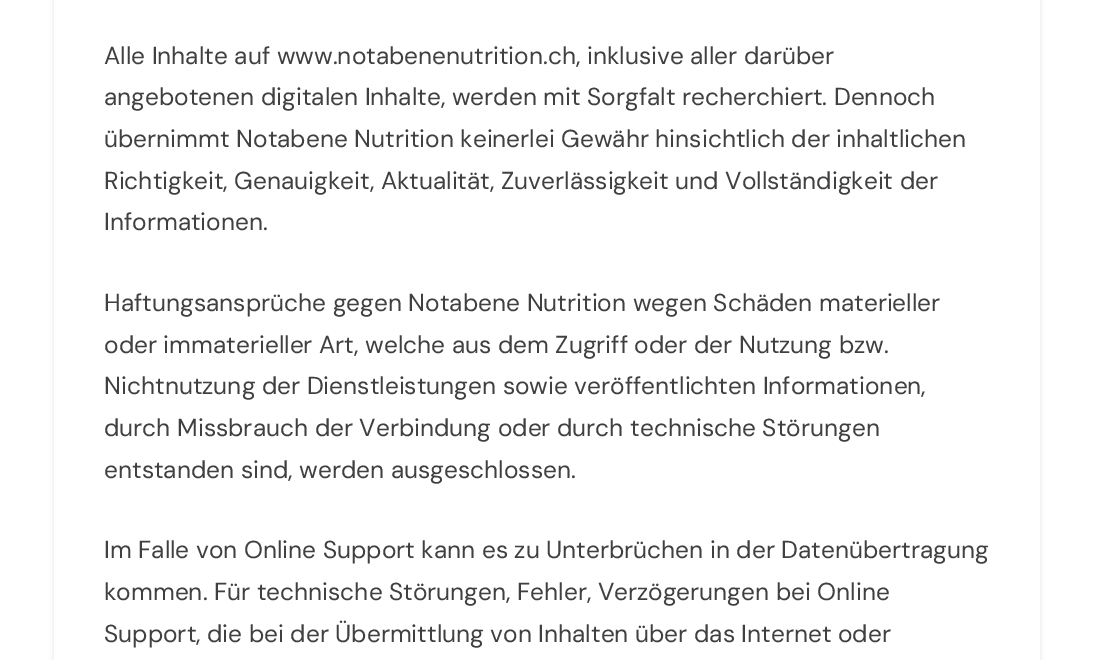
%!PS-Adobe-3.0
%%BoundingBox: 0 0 1093 660
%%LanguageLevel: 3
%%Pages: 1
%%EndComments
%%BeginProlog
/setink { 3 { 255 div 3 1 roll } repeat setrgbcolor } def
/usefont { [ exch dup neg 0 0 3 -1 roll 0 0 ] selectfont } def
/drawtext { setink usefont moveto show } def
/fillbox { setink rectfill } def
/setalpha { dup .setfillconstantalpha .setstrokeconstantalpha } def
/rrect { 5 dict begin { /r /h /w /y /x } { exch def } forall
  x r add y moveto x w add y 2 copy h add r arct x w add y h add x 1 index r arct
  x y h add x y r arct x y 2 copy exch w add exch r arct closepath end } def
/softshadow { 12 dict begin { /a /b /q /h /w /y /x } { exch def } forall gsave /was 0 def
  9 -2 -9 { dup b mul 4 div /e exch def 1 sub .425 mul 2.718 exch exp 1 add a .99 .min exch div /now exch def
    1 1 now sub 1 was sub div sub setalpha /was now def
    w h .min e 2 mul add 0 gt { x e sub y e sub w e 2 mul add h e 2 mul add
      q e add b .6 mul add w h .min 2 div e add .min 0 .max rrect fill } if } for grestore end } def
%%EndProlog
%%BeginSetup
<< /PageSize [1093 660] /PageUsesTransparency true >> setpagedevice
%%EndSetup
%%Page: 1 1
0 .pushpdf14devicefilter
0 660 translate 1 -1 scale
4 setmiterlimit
0 0 1093 660 255 255 255 fillbox
0 0 0 setink
54 -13 986 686 5 2.5 0.1 softshadow
54 0 986 660 255 255 255 fillbox
(Alle Inhalte auf www.notabenenutrition.ch, inklusive aller darüber) 104 64 /DMSans-Regular 24.5 64 64 64 drawtext
(angebotenen digitalen Inhalte, werden mit Sorgfalt recherchiert. Dennoch) 104 105 /DMSans-Regular 24.5 64 64 64 drawtext
(übernimmt Notabene Nutrition keinerlei Gewähr hinsichtlich der inhaltlichen) 104 147 /DMSans-Regular 24.5 64 64 64 drawtext
(Richtigkeit, Genauigkeit, Aktualität, Zuverlässigkeit und Vollständigkeit der) 104 189 /DMSans-Regular 24.5 64 64 64 drawtext
(Informationen.) 104 230 /DMSans-Regular 24.5 64 64 64 drawtext
(Haftungsansprüche gegen Notabene Nutrition wegen Schäden materieller) 104 311 /DMSans-Regular 24.5 64 64 64 drawtext
(oder immaterieller Art, welche aus dem Zugriff oder der Nutzung bzw.) 104 353 /DMSans-Regular 24.5 64 64 64 drawtext
(Nichtnutzung der Dienstleistungen sowie veröffentlichten Informationen,) 104 394 /DMSans-Regular 24.5 64 64 64 drawtext
(durch Missbrauch der Verbindung oder durch technische Störungen) 104 436 /DMSans-Regular 24.5 64 64 64 drawtext
(entstanden sind, werden ausgeschlossen.) 104 478 /DMSans-Regular 24.5 64 64 64 drawtext
(Im Falle von Online Support kann es zu Unterbrüchen in der Datenübertragung) 104 558 /DMSans-Regular 24.5 64 64 64 drawtext
(kommen. Für technische Störungen, Fehler, Verzögerungen bei Online) 104 600 /DMSans-Regular 24.5 64 64 64 drawtext
(Support, die bei der Übermittlung von Inhalten über das Internet oder) 104 642 /DMSans-Regular 24.5 64 64 64 drawtext
.poppdf14devicefilter showpage
%%EOF
